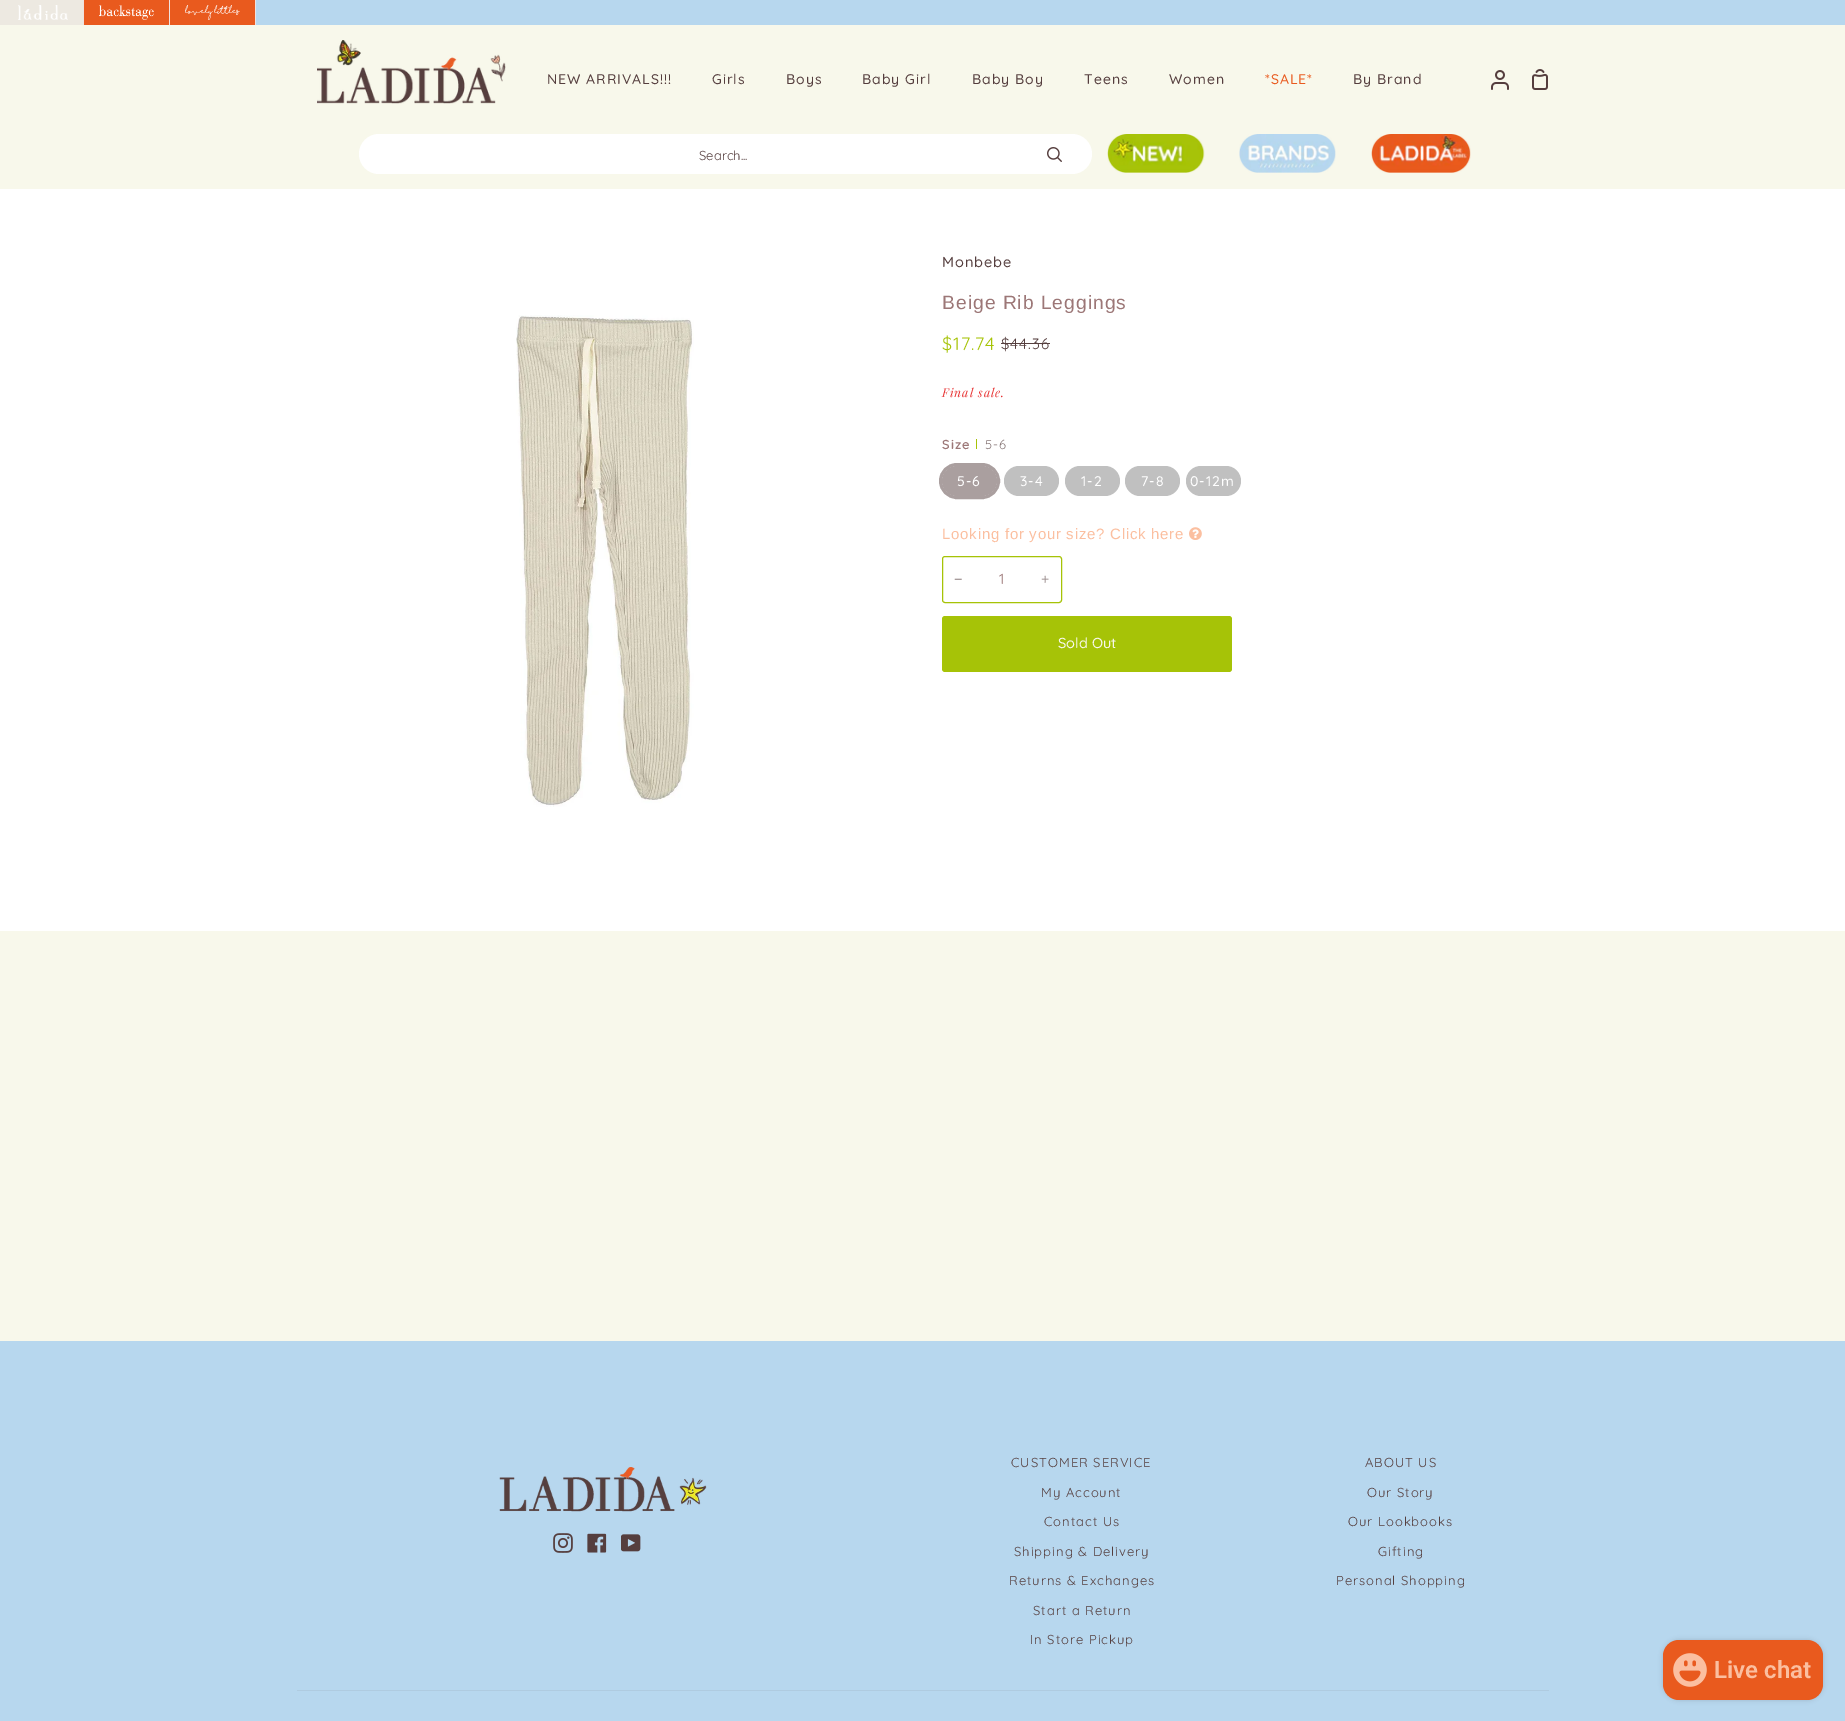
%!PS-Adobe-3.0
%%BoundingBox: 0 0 1845 1721
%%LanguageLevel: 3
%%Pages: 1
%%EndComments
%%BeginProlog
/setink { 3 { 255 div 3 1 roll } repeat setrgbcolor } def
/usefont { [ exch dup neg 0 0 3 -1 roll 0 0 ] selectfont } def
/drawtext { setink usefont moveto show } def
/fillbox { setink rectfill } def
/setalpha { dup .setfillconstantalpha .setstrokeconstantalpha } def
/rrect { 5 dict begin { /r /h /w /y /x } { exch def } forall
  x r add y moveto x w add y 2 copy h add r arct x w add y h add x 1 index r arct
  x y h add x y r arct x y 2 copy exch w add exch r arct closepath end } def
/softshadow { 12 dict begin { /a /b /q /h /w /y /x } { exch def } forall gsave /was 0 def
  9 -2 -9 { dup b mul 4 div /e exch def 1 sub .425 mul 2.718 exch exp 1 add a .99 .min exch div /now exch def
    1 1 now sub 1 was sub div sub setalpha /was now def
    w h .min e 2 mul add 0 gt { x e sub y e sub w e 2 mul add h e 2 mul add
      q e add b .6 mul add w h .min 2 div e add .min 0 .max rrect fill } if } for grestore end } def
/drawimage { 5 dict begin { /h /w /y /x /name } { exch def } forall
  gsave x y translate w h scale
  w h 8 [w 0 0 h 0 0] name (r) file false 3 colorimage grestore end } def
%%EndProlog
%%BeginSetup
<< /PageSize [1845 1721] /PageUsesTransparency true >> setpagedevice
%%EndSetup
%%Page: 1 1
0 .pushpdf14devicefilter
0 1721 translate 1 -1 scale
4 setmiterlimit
0 0 1845 1721 248 248 235 fillbox
256 0 1589 25 183 215 238 fillbox
0 0 83 25 237 233 225 fillbox
83 0 1 25 240 226 223 fillbox
(assets/img1.rgb) 18 5 50 15 drawimage
84 0 85 25 233 90 30 fillbox
169 0 1 25 240 226 223 fillbox
(assets/img2.rgb) 99 5 55 15 drawimage
170 0 85 25 233 90 30 fillbox
255 0 1 25 240 226 223 fillbox
(assets/img3.rgb) 185 5 55 15 drawimage
(assets/img4.rgb) 317 40 189 64 drawimage
/Quicksand-Medium 14 usefont
85 62 62 setink
547 84 moveto 1 0 (NEW ARRIVALS!!!) ashow
712 84 moveto 1 0 (Girls) ashow
786 84 moveto 1 0 (Boys) ashow
862 84 moveto 1 0 (Baby Girl) ashow
972 84 moveto 1 0 (Baby Boy) ashow
1084 84 moveto 1 0 (Teens) ashow
1169 84 moveto 1 0 (Women) ashow
233 90 30 setink
1265 84 moveto 1 0 (*SALE*) ashow
85 62 62 setink
1353 84 moveto 1 0 (By Brand) ashow
(assets/img5.rgb) 1491 70 18 20 drawimage
(assets/img6.rgb) 1532 69 16 21 drawimage
255 255 255 setink
359 134 733 40 20 rrect fill
(Search...) 699 160 /Quicksand-Regular 13 85 62 62 drawtext
(assets/img7.rgb) 1047 147 15 15 drawimage
(assets/img8.rgb) 1107 134 98 39 drawimage
(assets/img9.rgb) 1239 134 97 39 drawimage
(assets/img10.rgb) 1371 134 100 39 drawimage
0 189 1845 742 255 255 255 fillbox
(assets/img11.rgb) 516 315 178 492 drawimage
/Quicksand-Medium 14.5 usefont
85 62 62 setink
942 267 moveto 1 0 (Monbebe) ashow
/LiberationSans-Regular 19.25 usefont
156 119 119 setink
942 309 moveto 1 0 (Beige Rib Leggings) ashow
/Quicksand-Regular 18 usefont
166 195 7 setink
942 350 moveto 1 0 ($17.74) ashow
/Quicksand-Regular 15 usefont
85 62 62 setink
1001 349 moveto 1 0 ($44.36) ashow
1001 343 49 1 85 62 62 fillbox
/PlayfairDisplay-Italic 12 usefont
231 51 51 setink
942 397 moveto 1 0 (Final sale.) ashow
/Quicksand-SemiBold 13 usefont
156 119 119 setink
942 449 moveto 1 0 (Size) ashow
976 439 1 10 166 195 7 fillbox
/Quicksand-Regular 13 usefont
136 120 120 setink
985 449 moveto 1 0 (5-6) ashow
170 159 159 setink
3 setlinewidth
940.5 464.5 58 33 16.5 rrect stroke
942 466 55 30 15 rrect fill
/Quicksand-Medium 14 usefont
255 255 255 setink
957 486 moveto 1 0 (5-6) ashow
192 192 192 setink
1004 466 55 30 15 rrect fill
255 255 255 setink
1020 486 moveto 1 0 (3-4) ashow
192 192 192 setink
1065 466 55 30 15 rrect fill
255 255 255 setink
1081 486 moveto 1 0 (1-2) ashow
192 192 192 setink
1125 466 55 30 15 rrect fill
255 255 255 setink
1141 486 moveto 1 0 (7-8) ashow
192 192 192 setink
1186 466 55 30 15 rrect fill
255 255 255 setink
1190 486 moveto 1 0 (0-12m) ashow
/LiberationSans-Regular 15 usefont
251 191 160 setink
942 539 moveto 0.75 0 (Looking for your size? Click here) ashow
(assets/img12.rgb) 1189 527 13 13 drawimage
166 195 7 setink
1 setlinewidth
942.5 556.5 119 46 2.5 rrect stroke
(−) 954 584 /LiberationSans-Regular 14.5 136 120 120 drawtext
(1) 999 584 /Quicksand-Regular 14.5 156 119 119 drawtext
(+) 1041 584 /Quicksand-Regular 14.5 136 120 120 drawtext
166 195 7 setink
942 616 290 56 3 rrect fill
(Sold Out) 1058 648 /Quicksand-Medium 14.5 248 248 235 drawtext
0 1341 1845 380 183 215 238 fillbox
(assets/img13.rgb) 499 1467 208 45 drawimage
(assets/img14.rgb) 553 1533 20 20 drawimage
(assets/img15.rgb) 587 1533 20 20 drawimage
(assets/img16.rgb) 621 1534 20 18 drawimage
/Quicksand-Regular 13 usefont
85 62 62 setink
1011 1467 moveto 1 0 (CUSTOMER SERVICE) ashow
1041 1497 moveto 1 0 (My Account) ashow
1044 1526 moveto 1 0 (Contact Us) ashow
1014 1556 moveto 1 0 (Shipping & Delivery) ashow
1009 1585 moveto 1 0 (Returns & Exchanges) ashow
1033 1615 moveto 1 0 (Start a Return) ashow
1030 1644 moveto 1 0 (In Store Pickup) ashow
1365 1467 moveto 1 0 (ABOUT US) ashow
1367 1497 moveto 1 0 (Our Story) ashow
1348 1526 moveto 1 0 (Our Lookbooks) ashow
1378 1556 moveto 1 0 (Gifting) ashow
1336 1585 moveto 1 0 (Personal Shopping) ashow
297 1690 1252 1 175 203 224 fillbox
0 0 0 setink
1663 1640 160 60 16 2.5 0.15 softshadow
233 90 30 setink
1663 1640 160 60 16 rrect fill
(assets/img17.rgb) 1673 1653 34 34 drawimage
(Live chat) 1714 1678 /Roboto-SemiBold 24 251 191 160 drawtext
.poppdf14devicefilter showpage
%%EOF
